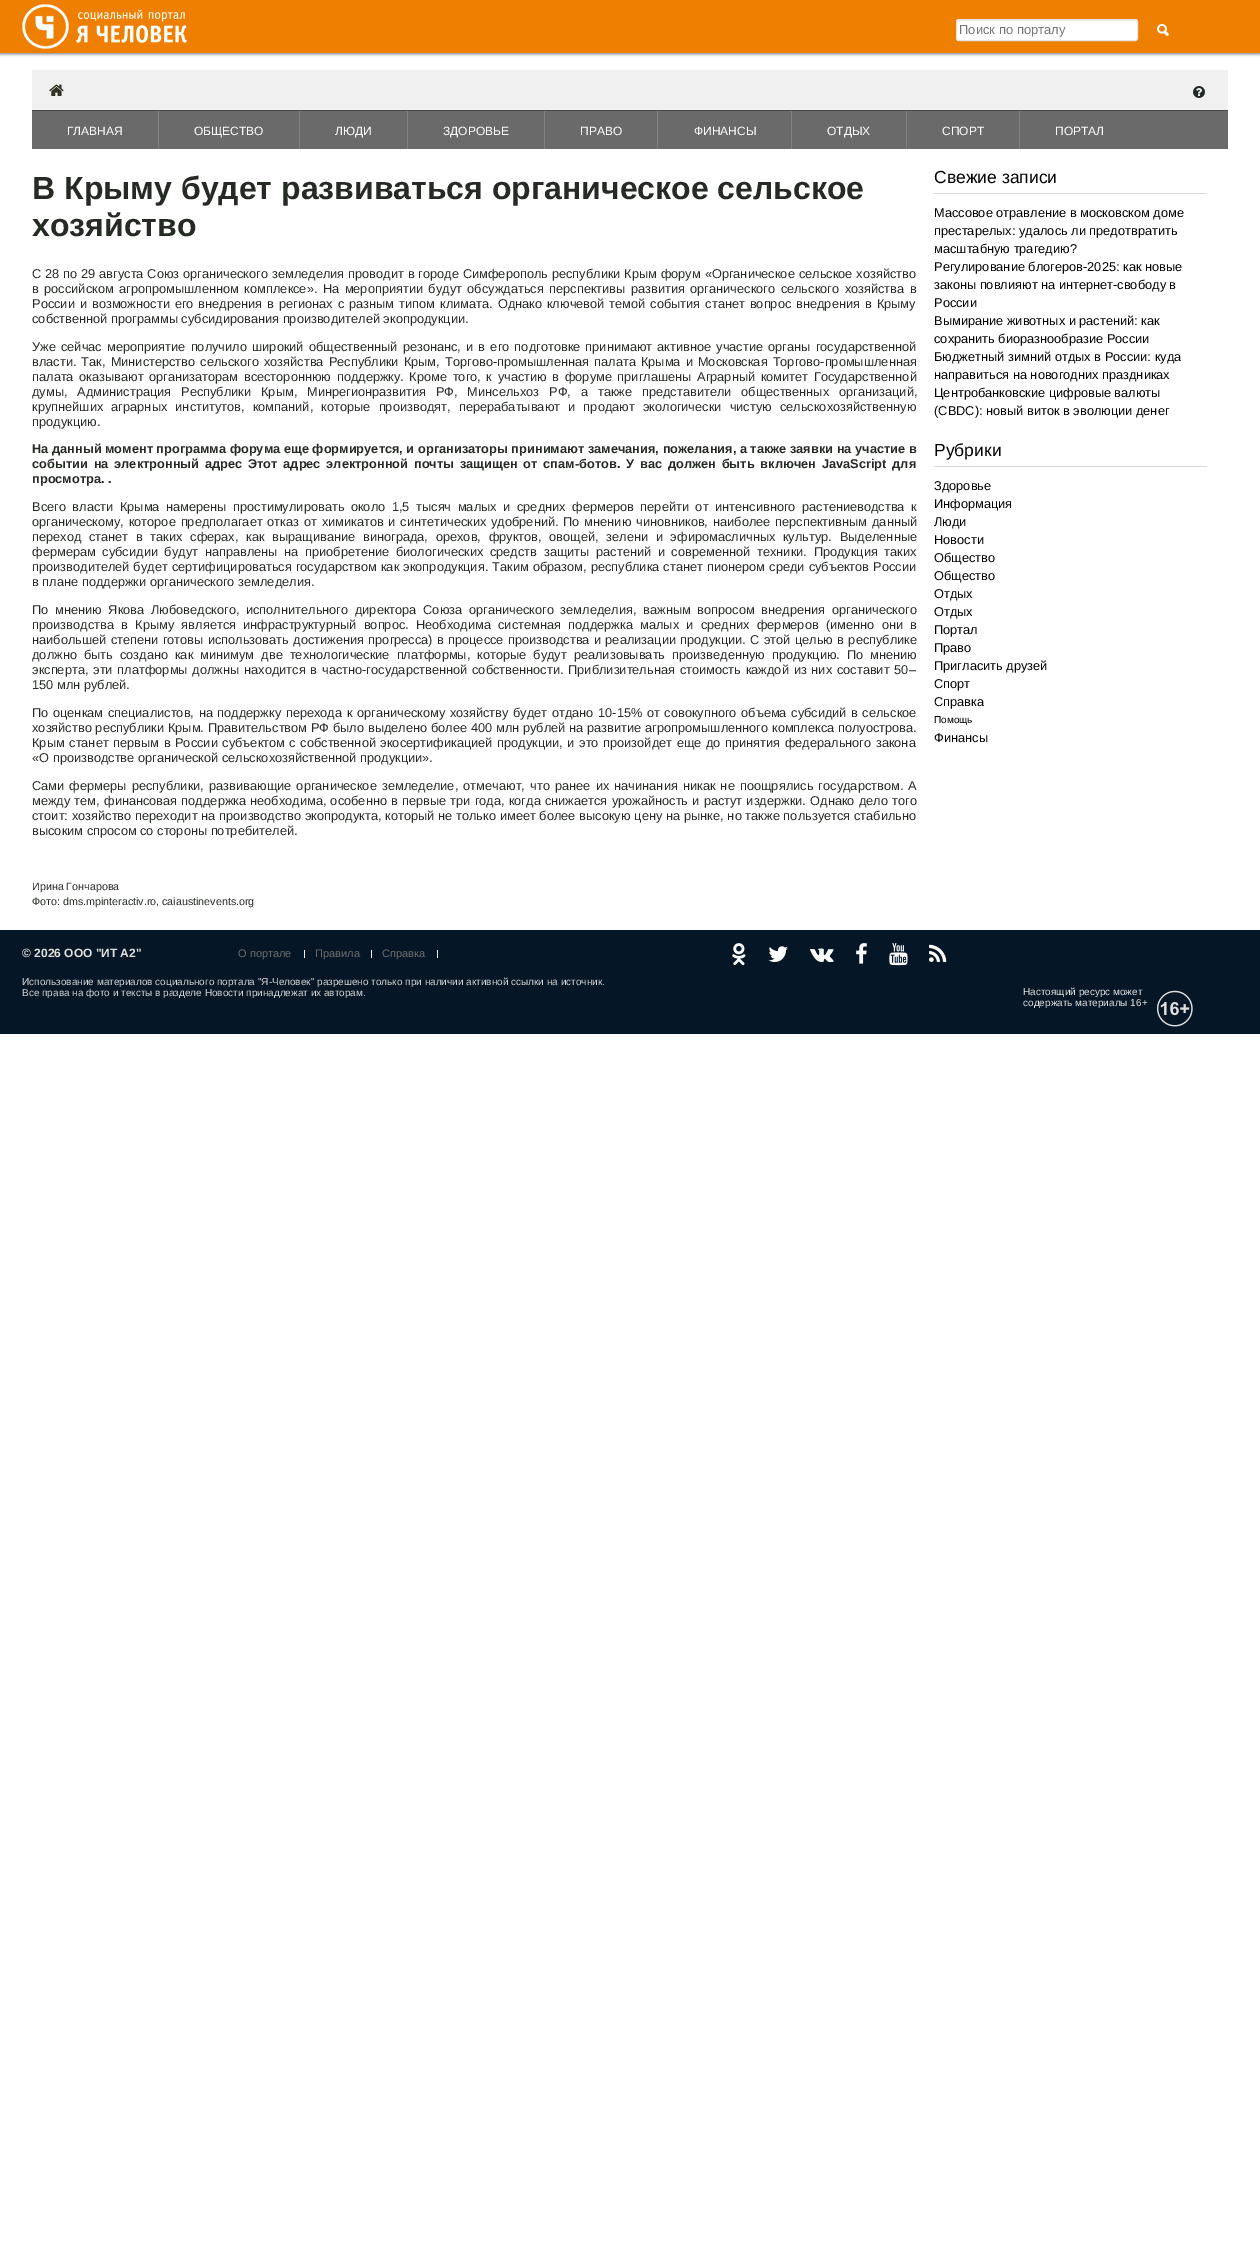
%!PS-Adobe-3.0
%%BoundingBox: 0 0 1260 2242
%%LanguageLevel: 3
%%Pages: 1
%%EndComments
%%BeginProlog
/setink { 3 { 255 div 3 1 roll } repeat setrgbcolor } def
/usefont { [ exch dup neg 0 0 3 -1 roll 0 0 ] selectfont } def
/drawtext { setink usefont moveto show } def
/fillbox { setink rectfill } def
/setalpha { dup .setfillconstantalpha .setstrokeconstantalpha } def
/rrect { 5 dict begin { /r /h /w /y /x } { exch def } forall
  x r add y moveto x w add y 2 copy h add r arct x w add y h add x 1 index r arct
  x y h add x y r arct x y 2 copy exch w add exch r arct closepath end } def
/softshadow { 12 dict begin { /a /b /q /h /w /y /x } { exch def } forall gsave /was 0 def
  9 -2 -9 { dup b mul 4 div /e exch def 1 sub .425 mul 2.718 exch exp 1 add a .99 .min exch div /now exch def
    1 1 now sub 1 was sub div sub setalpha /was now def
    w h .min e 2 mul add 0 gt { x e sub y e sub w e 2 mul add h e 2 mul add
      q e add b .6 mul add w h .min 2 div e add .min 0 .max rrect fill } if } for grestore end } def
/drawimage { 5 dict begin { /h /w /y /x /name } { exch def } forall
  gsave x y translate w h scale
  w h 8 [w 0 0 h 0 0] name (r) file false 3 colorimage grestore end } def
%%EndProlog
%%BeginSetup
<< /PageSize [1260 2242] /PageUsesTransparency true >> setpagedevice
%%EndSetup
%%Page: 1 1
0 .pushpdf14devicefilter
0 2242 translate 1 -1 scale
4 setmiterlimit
0 0 1260 2242 255 255 255 fillbox
119 119 119 setink
0 1 1260 53 0 1.5 1 softshadow
0 0 1260 53 238 127 0 fillbox
(assets/img1.rgb) 22 4 165 45 drawimage
255 255 255 setink
956 19 182 22 3 rrect fill
236 236 236 setink
959 21 moveto 1135 21 lineto 1136 21 1137 22 1137 23 curveto 1137 22 lineto 1137 21 1136 20 1135 20 curveto 959 20 lineto 958 20 957 21 957 22 curveto 957 23 lineto 957 22 958 21 959 21 curveto closepath fill
227 227 227 setink
956.5 19.5 181 21 2.5 rrect stroke
(Поиск по порталу) 959 34 /LiberationSans-Regular 13 117 117 117 drawtext
(assets/img2.rgb) 1157 24 12 12 drawimage
32 70 1196 40 240 240 240 fillbox
(assets/img3.rgb) 49 84 15 12 drawimage
(assets/img4.rgb) 1193 86 12 12 drawimage
32 111 1196 38 106 106 106 fillbox
32 110 1196 1 73 73 73 fillbox
158 111 1 38 127 127 127 fillbox
(ГЛАВНАЯ) 67 135 /LiberationSans-Regular 12 255 255 255 drawtext
299 111 1 38 127 127 127 fillbox
(ОБЩЕСТВО) 194 135 /LiberationSans-Regular 12 255 255 255 drawtext
407 111 1 38 127 127 127 fillbox
(ЛЮДИ) 335 135 /LiberationSans-Regular 12 255 255 255 drawtext
544 111 1 38 127 127 127 fillbox
(ЗДОРОВЬЕ) 443 135 /LiberationSans-Regular 12 255 255 255 drawtext
657 111 1 38 127 127 127 fillbox
(ПРАВО) 580 135 /LiberationSans-Regular 12 255 255 255 drawtext
791 111 1 38 127 127 127 fillbox
(ФИНАНСЫ) 694 135 /LiberationSans-Regular 12 255 255 255 drawtext
906 111 1 38 127 127 127 fillbox
(ОТДЫХ) 827 135 /LiberationSans-Regular 12 255 255 255 drawtext
1019 111 1 38 127 127 127 fillbox
(СПОРТ) 942 135 /LiberationSans-Regular 12 255 255 255 drawtext
(ПОРТАЛ) 1055 135 /LiberationSans-Regular 12 255 255 255 drawtext
(В Крыму будет развиваться органическое сельское) 32 199 /LiberationSans-Bold 32 37 43 36 drawtext
(хозяйство) 32 236 /LiberationSans-Bold 32 37 43 36 drawtext
/LiberationSans-Regular 12.8 usefont
32 278 moveto 0.3 0 32 (C 28 по 29 августа Союз органического земледелия проводит в городе Симферополь республики Крым форум «Органическое сельское хозяйство) widthshow
32 293 moveto 1.9 0 32 (в российском агропромышленном комплексе». На мероприятии будут обсуждаться перспективы развития органического сельского хозяйства в) widthshow
32 308 moveto 1.4 0 32 (России и возможности его внедрения в регионах с разным типом климата. Однако ключевой темой события станет вопрос внедрения в Крыму) widthshow
(собственной программы субсидирования производителей экопродукции.) 32 323 /LiberationSans-Regular 12.8 37 43 36 drawtext
32 351 moveto 1.6 0 32 (Уже сейчас мероприятие получило широкий общественный резонанс, и в его подготовке принимают активное участие органы государственной) widthshow
32 366 moveto 1.5 0 32 (власти. Так, Министерство сельского хозяйства Республики Крым, Торгово-промышленная палата Крыма и Московская Торгово-промышленная) widthshow
32 381 moveto 2 0 32 (палата оказывают организаторам всестороннюю поддержку. Кроме того, к участию в форуме приглашены Аграрный комитет Государственной) widthshow
32 396 moveto 6.25 0 32 (думы, Администрация Республики Крым, Минрегионразвития РФ, Минсельхоз РФ, а также представители общественных организаций,) widthshow
32 411 moveto 4.6 0 32 (крупнейших аграрных институтов, компаний, которые производят, перерабатывают и продают экологически чистую сельскохозяйственную) widthshow
(продукцию.) 32 426 /LiberationSans-Regular 12.8 37 43 36 drawtext
(На данный момент программа форума еще формируется, и организаторы принимают замечания, пожелания, а также заявки на участие в) 32 453 /LiberationSans-Bold 12.8 37 43 36 drawtext
32 468 moveto 2.25 0 32 (событии на электронный адрес Этот адрес электронной почты защищен от спам-ботов. У вас должен быть включен JavaScript для) widthshow
(просмотра. .) 32 483 /LiberationSans-Bold 12.8 37 43 36 drawtext
/LiberationSans-Regular 12.8 usefont
32 511 moveto 3 0 32 (Всего власти Крыма намерены простимулировать около 1,5 тысяч малых и средних фермеров перейти от интенсивного растениеводства к) widthshow
32 526 moveto 1.25 0 32 (органическому, которое предполагает отказ от химикатов и синтетических удобрений. По мнению чиновников, наиболее перспективным данный) widthshow
32 541 moveto 4.1 0 32 (переход станет в таких сферах, как выращивание винограда, орехов, фруктов, овощей, зелени и эфиромасличных культур. Выделенные) widthshow
32 556 moveto 3.1 0 32 (фермерам субсидии будут направлены на приобретение биологических средств защиты растений и современной техники. Продукция таких) widthshow
32 571 moveto 0.5 0 32 (производителей будет сертифицироваться государством как экопродукция. Таким образом, республика станет пионером среди субъектов России) widthshow
(в плане поддержки органического земледелия.) 32 586 /LiberationSans-Regular 12.8 37 43 36 drawtext
32 614 moveto 3.1 0 32 (По мнению Якова Любоведского, исполнительного директора Союза органического земледелия, важным вопросом внедрения органического) widthshow
32 629 moveto 3.75 0 32 (производства в Крыму является инфраструктурный вопрос. Необходима системная поддержка малых и средних фермеров \(именно они в) widthshow
32 644 moveto 0.75 0 32 (наибольшей степени готовы использовать достижения прогресса\) в процессе производства и реализации продукции. С этой целью в республике) widthshow
32 659 moveto 3.4 0 32 (должно быть создано как минимум две технологические платформы, которые будут реализовывать произведенную продукцию. По мнению) widthshow
32 674 moveto 1.25 0 32 (эксперта, эти платформы должны находится в частно-государственной собственности. Приблизительная стоимость каждой из них составит 50–) widthshow
(150 млн рублей.) 32 689 /LiberationSans-Regular 12.8 37 43 36 drawtext
32 717 moveto 1 0 32 (По оценкам специалистов, на поддержку перехода к органическому хозяйству будет отдано 10-15% от совокупного объема субсидий в сельское) widthshow
32 732 moveto 0.2 0 32 (хозяйство республики Крым. Правительством РФ было выделено более 400 млн рублей на развитие агропромышленного комплекса полуострова.) widthshow
32 747 moveto 1 0 32 (Крым станет первым в России субъектом с собственной экосертификацией продукции, и это произойдет еще до принятия федерального закона) widthshow
(«О производстве органической сельскохозяйственной продукции».) 32 762 /LiberationSans-Regular 12.8 37 43 36 drawtext
32 790 moveto 1.6 0 32 (Сами фермеры республики, развивающие органическое земледелие, отмечают, что ранее их начинания никак не поощрялись государством. А) widthshow
32 805 moveto 0.6 0 32 (между тем, финансовая поддержка необходима, особенно в первые три года, когда снижается урожайность и растут издержки. Однако дело того) widthshow
32 820 moveto 0.25 0 32 (стоит: хозяйство переходит на производство экопродукта, который не только имеет более высокую цену на рынке, но также пользуется стабильно) widthshow
(высоким спросом со стороны потребителей.) 32 835 /LiberationSans-Regular 12.8 37 43 36 drawtext
(Ирина Гончарова) 32 890 /LiberationSans-Regular 10.7 37 43 36 drawtext
(Фото: dms.mpinteractiv.ro, caiaustinevents.org) 32 905 /LiberationSans-Regular 10.7 37 43 36 drawtext
934 193 273 1 217 217 217 fillbox
(Свежие записи) 934 183 /LiberationSans-Regular 17.5 0 0 0 drawtext
(Массовое отравление в московском доме) 934 217 /LiberationSans-Regular 12.8 0 0 0 drawtext
(престарелых: удалось ли предотвратить) 934 235 /LiberationSans-Regular 12.8 0 0 0 drawtext
(масштабную трагедию?) 934 253 /LiberationSans-Regular 12.8 0 0 0 drawtext
(Регулирование блогеров-2025: как новые) 934 271 /LiberationSans-Regular 12.8 0 0 0 drawtext
(законы повлияют на интернет-свободу в) 934 289 /LiberationSans-Regular 12.8 0 0 0 drawtext
(России) 934 307 /LiberationSans-Regular 12.8 0 0 0 drawtext
(Вымирание животных и растений: как) 934 325 /LiberationSans-Regular 12.8 0 0 0 drawtext
(сохранить биоразнообразие России) 934 343 /LiberationSans-Regular 12.8 0 0 0 drawtext
(Бюджетный зимний отдых в России: куда) 934 361 /LiberationSans-Regular 12.8 0 0 0 drawtext
(направиться на новогодних праздниках) 934 379 /LiberationSans-Regular 12.8 0 0 0 drawtext
(Центробанковские цифровые валюты) 934 397 /LiberationSans-Regular 12.8 0 0 0 drawtext
(\(CBDC\): новый виток в эволюции денег) 934 415 /LiberationSans-Regular 12.8 0 0 0 drawtext
934 466 273 1 217 217 217 fillbox
(Рубрики) 934 456 /LiberationSans-Regular 17.5 0 0 0 drawtext
(Здоровье) 934 490 /LiberationSans-Regular 12.8 0 0 0 drawtext
(Информация) 934 508 /LiberationSans-Regular 12.8 0 0 0 drawtext
(Люди) 934 526 /LiberationSans-Regular 12.8 0 0 0 drawtext
(Новости) 934 544 /LiberationSans-Regular 12.8 0 0 0 drawtext
(Общество) 934 562 /LiberationSans-Regular 12.8 0 0 0 drawtext
(Общество) 934 580 /LiberationSans-Regular 12.8 0 0 0 drawtext
(Отдых) 934 598 /LiberationSans-Regular 12.8 0 0 0 drawtext
(Отдых) 934 616 /LiberationSans-Regular 12.8 0 0 0 drawtext
(Портал) 934 634 /LiberationSans-Regular 12.8 0 0 0 drawtext
(Право) 934 652 /LiberationSans-Regular 12.8 0 0 0 drawtext
(Пригласить друзей) 934 670 /LiberationSans-Regular 12.8 0 0 0 drawtext
(Спорт) 934 688 /LiberationSans-Regular 12.8 0 0 0 drawtext
(Справка) 934 706 /LiberationSans-Regular 12.8 0 0 0 drawtext
(Помощь) 934 723 /LiberationSans-Regular 10 0 0 0 drawtext
(Финансы) 934 742 /LiberationSans-Regular 12.8 0 0 0 drawtext
0 930 1260 104 5 22 38 fillbox
(© 2026 ООО "ИТ А2") 22 957 /LiberationSans-Bold 12 224 224 224 drawtext
(О портале) 238 957 /LiberationSans-Regular 11 109 109 109 drawtext
304 950 1 8 255 255 255 fillbox
(Правила) 315 957 /LiberationSans-Regular 11 109 109 109 drawtext
371 950 1 8 255 255 255 fillbox
(Справка) 382 957 /LiberationSans-Regular 11 109 109 109 drawtext
437 950 1 8 255 255 255 fillbox
(assets/img5.rgb) 732 943 14 23 drawimage
(assets/img6.rgb) 768 946 20 16 drawimage
(assets/img7.rgb) 810 948 24 14 drawimage
(assets/img8.rgb) 856 943 11 21 drawimage
(assets/img9.rgb) 889 943 19 23 drawimage
(assets/img10.rgb) 929 944 18 18 drawimage
(Использование материалов социального портала "Я-Человек" разрешено только при наличии активной ссылки на источник.) 22 985 /LiberationSans-Regular 10 213 213 212 drawtext
(Все права на фото и тексты в разделе Новости принадлежат их авторам.) 22 996 /LiberationSans-Regular 10 213 213 212 drawtext
(Настоящий ресурс может) 1023 995 /LiberationSans-Regular 10 224 224 224 drawtext
(содержать материалы 16+) 1023 1006 /LiberationSans-Regular 10 224 224 224 drawtext
(assets/img11.rgb) 1157 990 36 37 drawimage
.poppdf14devicefilter showpage
%%EOF
